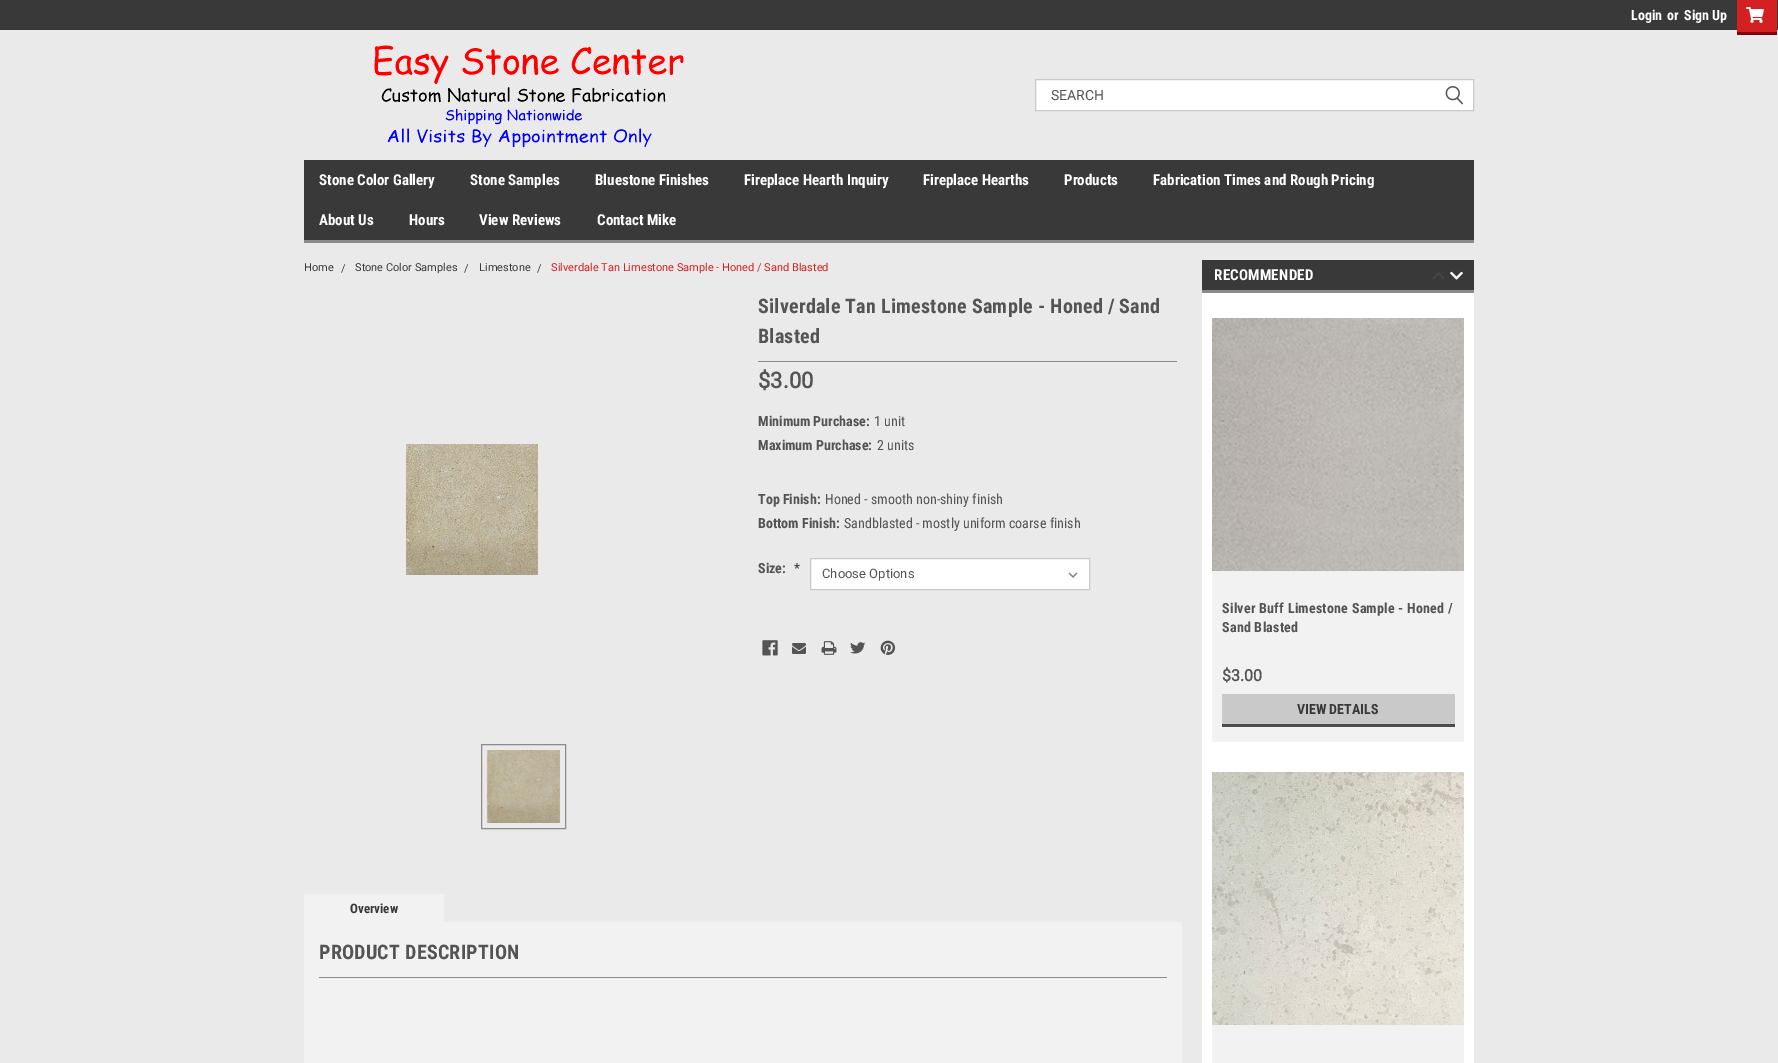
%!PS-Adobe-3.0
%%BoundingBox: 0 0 1778 1063
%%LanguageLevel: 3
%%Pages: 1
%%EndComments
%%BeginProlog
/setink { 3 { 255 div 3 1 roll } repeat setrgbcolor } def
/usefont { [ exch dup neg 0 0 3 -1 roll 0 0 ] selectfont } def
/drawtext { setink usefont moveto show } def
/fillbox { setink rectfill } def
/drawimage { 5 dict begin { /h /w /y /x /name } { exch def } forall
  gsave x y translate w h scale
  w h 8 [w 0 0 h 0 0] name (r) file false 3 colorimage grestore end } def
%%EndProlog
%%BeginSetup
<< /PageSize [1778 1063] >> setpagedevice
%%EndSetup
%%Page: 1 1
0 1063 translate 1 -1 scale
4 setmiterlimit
0 0 1778 1063 234 234 234 fillbox
0 0 1778 30 57 57 57 fillbox
(Login) 1631 20 /RobotoCondensed-Bold 14 255 255 255 drawtext
(or) 1667 20 /RobotoCondensed-Bold 14 255 255 255 drawtext
(Sign Up) 1684 20 /RobotoCondensed-Bold 14 255 255 255 drawtext
1737 0 40 32 212 32 32 fillbox
1737 32 40 3 134 1 9 fillbox
(assets/img1.rgb) 1746 6 18 17 drawimage
(assets/img2.rgb) 374 45 310 103 drawimage
255 255 255 setink
1035.5 79.5 moveto 1473.5 79.5 lineto 1473.5 110.5 lineto 1035.5 110.5 lineto closepath gsave fill grestore
202 201 201 setink
stroke
(SEARCH) 1051 100 /Roboto-Regular 14 84 84 84 drawtext
(assets/img3.rgb) 1445 86 18 19 drawimage
304 160 1170 80 57 57 57 fillbox
304 240 1170 3 139 139 139 fillbox
(Stone Color Gallery) 319 185 /RobotoCondensed-Bold 15 255 255 255 drawtext
(Stone Samples) 470 185 /RobotoCondensed-Bold 15 255 255 255 drawtext
(Bluestone Finishes) 595 185 /RobotoCondensed-Bold 15 255 255 255 drawtext
(Fireplace Hearth Inquiry) 744 185 /RobotoCondensed-Bold 15 255 255 255 drawtext
(Fireplace Hearths) 923 185 /RobotoCondensed-Bold 15 255 255 255 drawtext
(Products) 1064 185 /RobotoCondensed-Bold 15 255 255 255 drawtext
(Fabrication Times and Rough Pricing) 1153 185 /RobotoCondensed-Bold 15 255 255 255 drawtext
(About Us) 319 225 /RobotoCondensed-Bold 15 255 255 255 drawtext
(Hours) 409 225 /RobotoCondensed-Bold 15 255 255 255 drawtext
(View Reviews) 479 225 /RobotoCondensed-Bold 15 255 255 255 drawtext
(Contact Mike) 597 225 /RobotoCondensed-Bold 15 255 255 255 drawtext
(Home) 304 271 /Roboto-Regular 11 57 57 57 drawtext
(/) 341 272 /Roboto-Regular 11 57 57 57 drawtext
(Stone Color Samples) 355 271 /Roboto-Regular 11 57 57 57 drawtext
(/) 464 272 /Roboto-Regular 11 57 57 57 drawtext
(Limestone) 479 271 /Roboto-Regular 11 57 57 57 drawtext
(/) 537 272 /Roboto-Regular 11 57 57 57 drawtext
(Silverdale Tan Limestone Sample - Honed / Sand Blasted) 551 271 /Roboto-Regular 11 212 32 32 drawtext
(assets/img4.rgb) 406 444 132 131 drawimage
139 139 139 setink
481.5 744.5 84 84 rectstroke
(assets/img5.rgb) 486 750 74 73 drawimage
758 361 419 1 139 139 139 fillbox
/RobotoCondensed-Bold 20 usefont
84 84 84 setink
758 313 moveto 0.25 0 (Silverdale Tan Limestone Sample - Honed / Sand) ashow
758 343 moveto 0.25 0 (Blasted) ashow
($3.00) 758 388 /Roboto-Bold 22 84 84 84 drawtext
(Minimum Purchase:) 758 426 /RobotoCondensed-Bold 14 84 84 84 drawtext
(1 unit) 874 426 /RobotoCondensed-Regular 14 84 84 84 drawtext
(Maximum Purchase:) 758 450 /RobotoCondensed-Bold 14 84 84 84 drawtext
(2 units) 877 450 /RobotoCondensed-Regular 14 84 84 84 drawtext
(Top Finish:) 758 504 /RobotoCondensed-Bold 14 84 84 84 drawtext
(Honed - smooth non-shiny finish) 825 504 /RobotoCondensed-Regular 14 84 84 84 drawtext
(Bottom Finish:) 758 528 /RobotoCondensed-Bold 14 84 84 84 drawtext
(Sandblasted - mostly uniform coarse finish) 844 528 /RobotoCondensed-Regular 14 84 84 84 drawtext
(Size:) 758 573 /RobotoCondensed-Bold 14 84 84 84 drawtext
(*) 794 573 /RobotoCondensed-Regular 14 57 57 57 drawtext
811 559 278 30 255 255 255 fillbox
(assets/img6.rgb) 1068 572 10 6 drawimage
202 201 201 setink
810.5 558.5 279 31 rectstroke
(Choose Options) 822 578 /Roboto-Regular 13 84 84 84 drawtext
(assets/img7.rgb) 762 640 16 16 drawimage
(assets/img8.rgb) 792 643 14 11 drawimage
(assets/img9.rgb) 821 641 16 14 drawimage
(assets/img10.rgb) 850 642 16 12 drawimage
(assets/img11.rgb) 880 640 16 15 drawimage
304 894 140 28 242 242 242 fillbox
(Overview) 350 913 /RobotoCondensed-Bold 13 57 57 57 drawtext
304 922 878 141 242 242 242 fillbox
319 977 848 1 139 139 139 fillbox
/RobotoCondensed-Bold 20 usefont
84 84 84 setink
319 959 moveto 0.25 0 (PRODUCT DESCRIPTION) ashow
1202 260 272 30 57 57 57 fillbox
1202 290 272 3 139 139 139 fillbox
/RobotoCondensed-Bold 15 usefont
255 255 255 setink
1214 280 moveto 0.25 0 (RECOMMENDED) ashow
1202 293 272 770 255 255 255 fillbox
(assets/img12.rgb) 1432 272 13 8 drawimage
(assets/img13.rgb) 1450 271 13 9 drawimage
1212 571 252 171 242 242 242 fillbox
(assets/img14.rgb) 1212 318 252 253 drawimage
/RobotoCondensed-Bold 14 usefont
84 84 84 setink
1222 613 moveto 0.25 0 (Silver Buff Limestone Sample - Honed /) ashow
1222 632 moveto 0.25 0 (Sand Blasted) ashow
($3.00) 1222 681 /Roboto-Bold 16 84 84 84 drawtext
1222 694 233 30 202 201 201 fillbox
1222 724 233 3 76 76 76 fillbox
(VIEW DETAILS) 1297 714 /RobotoCondensed-Bold 14 57 57 57 drawtext
1212 1025 252 38 242 242 242 fillbox
(assets/img15.rgb) 1212 772 252 253 drawimage
showpage
%%EOF
